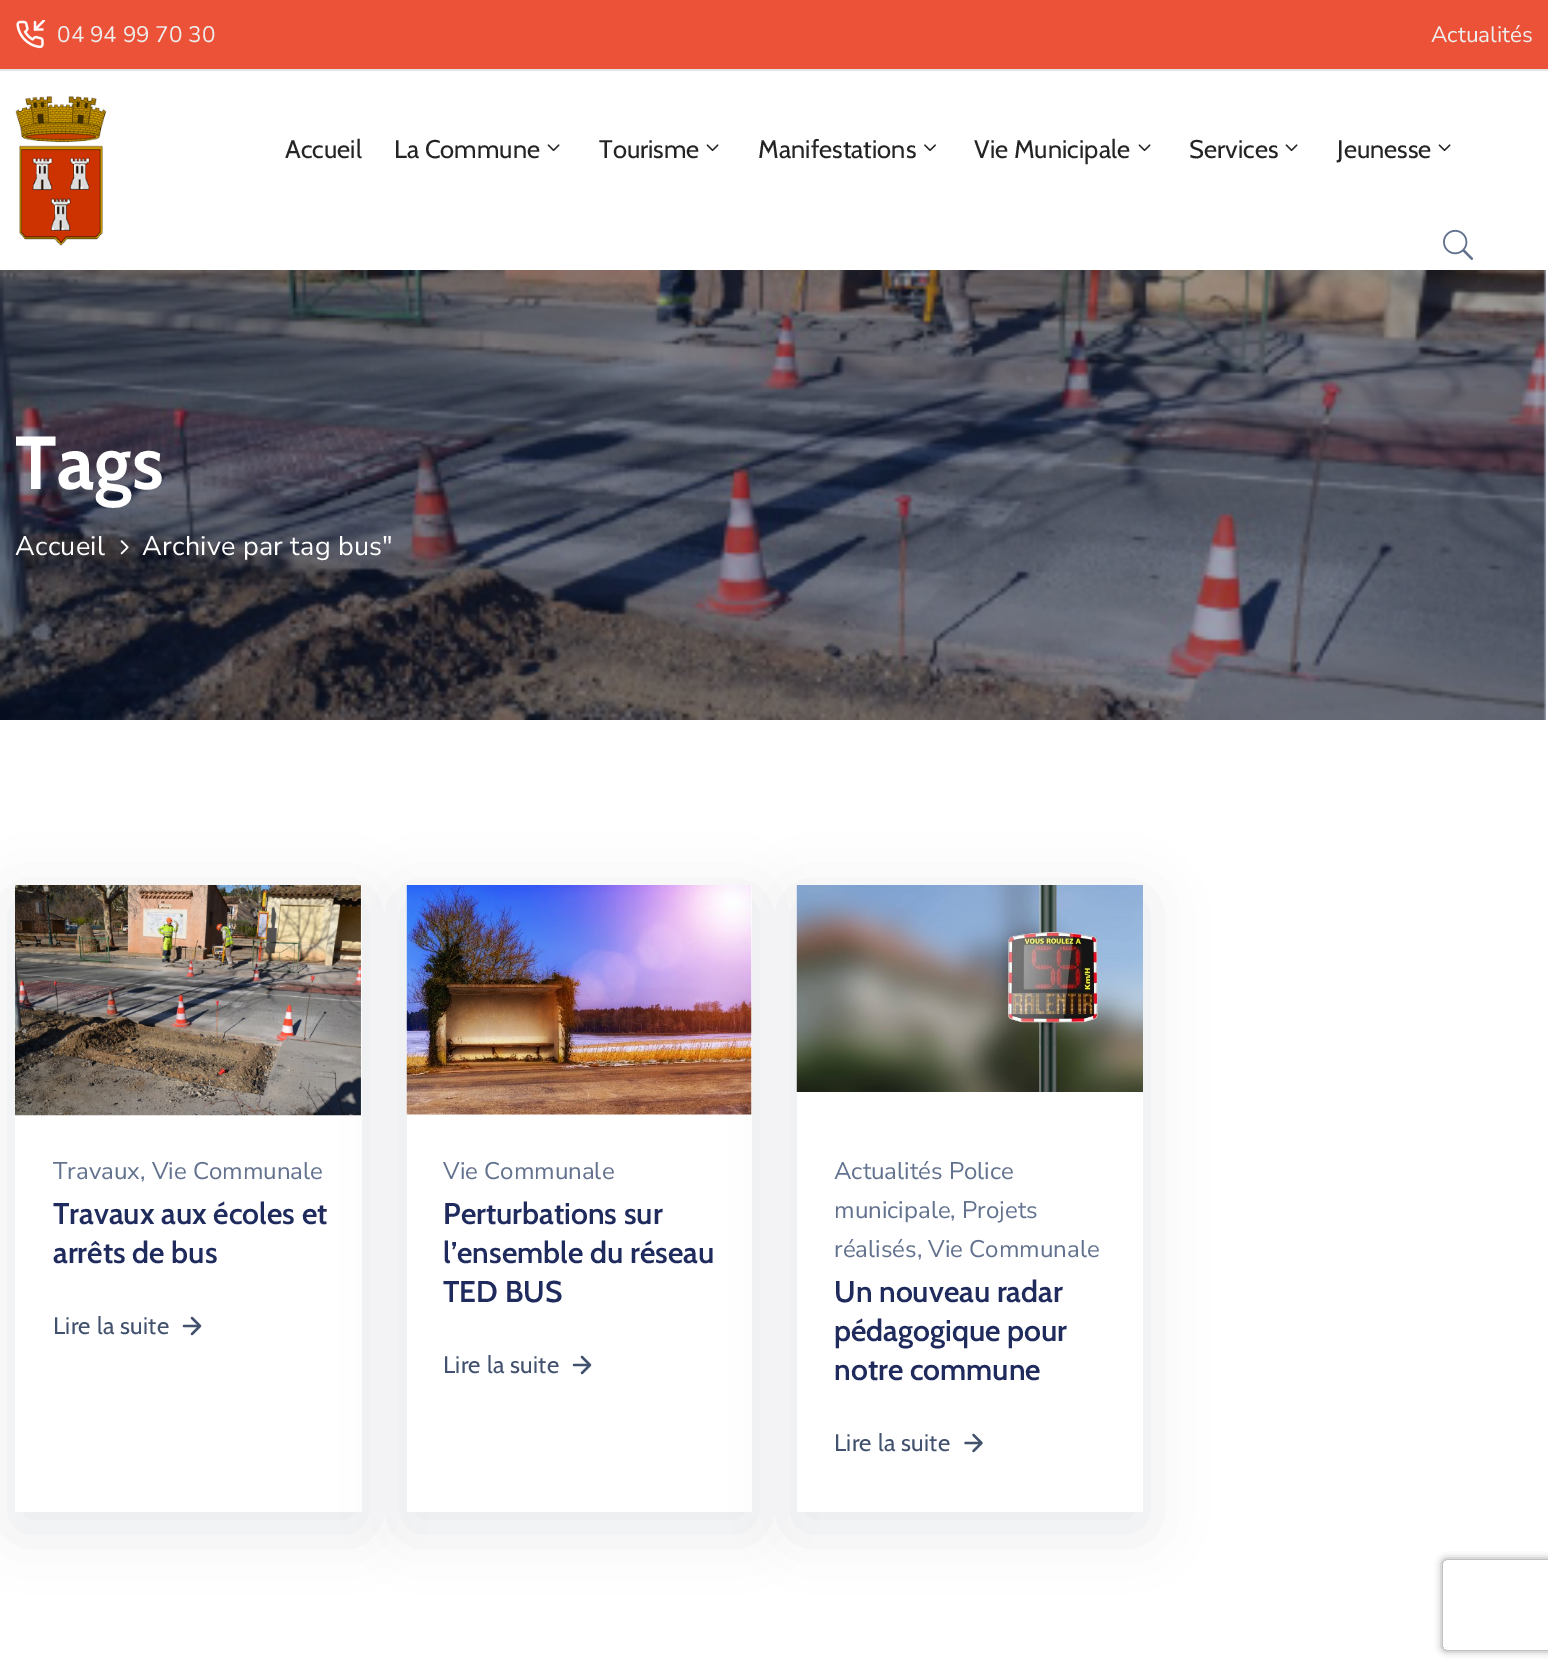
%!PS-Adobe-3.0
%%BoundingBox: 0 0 1548 1670
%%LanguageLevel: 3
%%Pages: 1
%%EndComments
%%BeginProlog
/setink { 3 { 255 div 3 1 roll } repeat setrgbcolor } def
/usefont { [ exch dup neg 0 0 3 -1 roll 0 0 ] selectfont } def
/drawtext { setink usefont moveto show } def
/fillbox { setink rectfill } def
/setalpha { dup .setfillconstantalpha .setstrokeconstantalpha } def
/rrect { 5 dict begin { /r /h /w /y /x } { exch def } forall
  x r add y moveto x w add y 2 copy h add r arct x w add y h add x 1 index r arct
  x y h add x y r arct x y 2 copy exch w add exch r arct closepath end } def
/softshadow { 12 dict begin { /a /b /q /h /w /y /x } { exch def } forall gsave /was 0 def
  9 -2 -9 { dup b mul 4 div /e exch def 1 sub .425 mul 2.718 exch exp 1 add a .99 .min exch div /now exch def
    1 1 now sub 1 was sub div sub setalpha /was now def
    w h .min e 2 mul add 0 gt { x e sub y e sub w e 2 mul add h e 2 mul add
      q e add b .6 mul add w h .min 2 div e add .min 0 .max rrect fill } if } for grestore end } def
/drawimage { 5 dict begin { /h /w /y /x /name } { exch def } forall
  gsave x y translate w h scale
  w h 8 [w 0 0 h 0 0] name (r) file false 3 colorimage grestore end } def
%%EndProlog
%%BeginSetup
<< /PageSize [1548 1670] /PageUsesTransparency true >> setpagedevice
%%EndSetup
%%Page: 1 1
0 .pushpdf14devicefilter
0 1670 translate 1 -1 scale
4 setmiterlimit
0 0 1548 1670 255 255 255 fillbox
0 0 1548 69 236 82 55 fillbox
0 69 1548 2 229 229 229 fillbox
(assets/img1.rgb) 16 20 29 29 drawimage
(04 94 99 70 30) 57 42 /NunitoSans-Regular 22.5 238 238 238 drawtext
(Actualités) 1431 42 /NunitoSans-Regular 22.5 238 238 238 drawtext
(assets/img2.rgb) 15 96 91 150 drawimage
(Accueil) 285 158 /Cabin-Regular 25.5 36 36 36 drawtext
(La Commune) 394 158 /Cabin-Regular 25.5 36 36 36 drawtext
(assets/img3.rgb) 547 144 13 8 drawimage
(Tourisme) 599 158 /Cabin-Regular 25.5 36 36 36 drawtext
(assets/img3.rgb) 706 144 13 8 drawimage
(Manifestations) 758 158 /Cabin-Regular 25.5 36 36 36 drawtext
(assets/img4.rgb) 924 144 12 8 drawimage
(Vie Municipale) 974 158 /Cabin-Regular 25.5 36 36 36 drawtext
(assets/img3.rgb) 1138 144 13 8 drawimage
(Services) 1189 158 /Cabin-Regular 25.5 36 36 36 drawtext
(assets/img3.rgb) 1285 144 13 8 drawimage
(Jeunesse) 1337 158 /Cabin-Regular 25.5 36 36 36 drawtext
(assets/img3.rgb) 1438 144 13 8 drawimage
(assets/img5.rgb) 1443 229 31 31 drawimage
(assets/img6.rgb) 0 270 1546 450 drawimage
/Cabin-Bold 75 usefont
255 255 255 setink
15 489 moveto 0.25 0 (Tags) ashow
/NunitoSans-Regular 27 usefont
15 555 moveto 0.25 0 (Accueil) ashow
(assets/img7.rgb) 120 540 9 15 drawimage
142 555 moveto 0.25 0 (Archive par tag bus") ashow
6 22 58 setink
15 900 347 627 0 30 0.1 softshadow
15 885 347 627 255 255 255 fillbox
6 22 58 setink
407 900 345 627 0 30 0.1 softshadow
(assets/img8.rgb) 15 885 346 231 drawimage
(Travaux‚ Vie Communale) 53 1179 /NunitoSans-Regular 24 98 113 141 drawtext
(Travaux aux écoles et) 53 1224 /Cabin-SemiBold 30 32 43 93 drawtext
(arrêts de bus) 53 1263 /Cabin-SemiBold 30 32 43 93 drawtext
/Cabin-Regular 24 usefont
66 81 109 setink
53 1334 moveto 0.25 0 (Lire la suite) ashow
2.2 setlinewidth
1 setlinecap
1 setlinejoin
184 1326 moveto 200 1326 lineto 192 1318 moveto 200 1326 lineto 192 1334 lineto stroke
407 885 345 627 255 255 255 fillbox
6 22 58 setink
797 900 346 627 0 30 0.1 softshadow
(assets/img9.rgb) 406 885 346 230 drawimage
(Vie Communale) 443 1179 /NunitoSans-Regular 24 98 113 141 drawtext
(Perturbations sur) 443 1224 /Cabin-SemiBold 30 32 43 93 drawtext
(l’ensemble du réseau) 443 1263 /Cabin-SemiBold 30 32 43 93 drawtext
(TED BUS) 443 1302 /Cabin-SemiBold 30 32 43 93 drawtext
/Cabin-Regular 24 usefont
66 81 109 setink
443 1373 moveto 0.25 0 (Lire la suite) ashow
574 1365 moveto 590 1365 lineto 582 1357 moveto 590 1365 lineto 582 1373 lineto stroke
797 1092 346 420 255 255 255 fillbox
(assets/img10.rgb) 796 885 347 207 drawimage
(Actualités Police) 834 1179 /NunitoSans-Regular 24 98 113 141 drawtext
(municipale‚ Projets) 834 1218 /NunitoSans-Regular 24 98 113 141 drawtext
(réalisés‚ Vie Communale) 834 1257 /NunitoSans-Regular 24 98 113 141 drawtext
(Un nouveau radar) 834 1302 /Cabin-SemiBold 30 32 43 93 drawtext
(pédagogique pour) 834 1341 /Cabin-SemiBold 30 32 43 93 drawtext
(notre commune) 834 1380 /Cabin-SemiBold 30 32 43 93 drawtext
/Cabin-Regular 24 usefont
66 81 109 setink
834 1451 moveto 0.25 0 (Lire la suite) ashow
965.5 1443 moveto 981.5 1443 lineto 973.5 1435 moveto 981.5 1443 lineto 973.5 1451 lineto stroke
gsave
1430 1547 moveto 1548 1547 lineto 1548 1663 lineto 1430 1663 lineto closepath 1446 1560 moveto 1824 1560 lineto 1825.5 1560 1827 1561.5 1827 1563 curveto 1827 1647 lineto 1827 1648.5 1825.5 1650 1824 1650 curveto 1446 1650 lineto 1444.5 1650 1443 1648.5 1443 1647 curveto 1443 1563 lineto 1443 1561.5 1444.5 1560 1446 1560 curveto closepath eoclip newpath
128 128 128 setink
1443 1560 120 90 3 4 1 softshadow
grestore
.poppdf14devicefilter showpage
%%EOF
